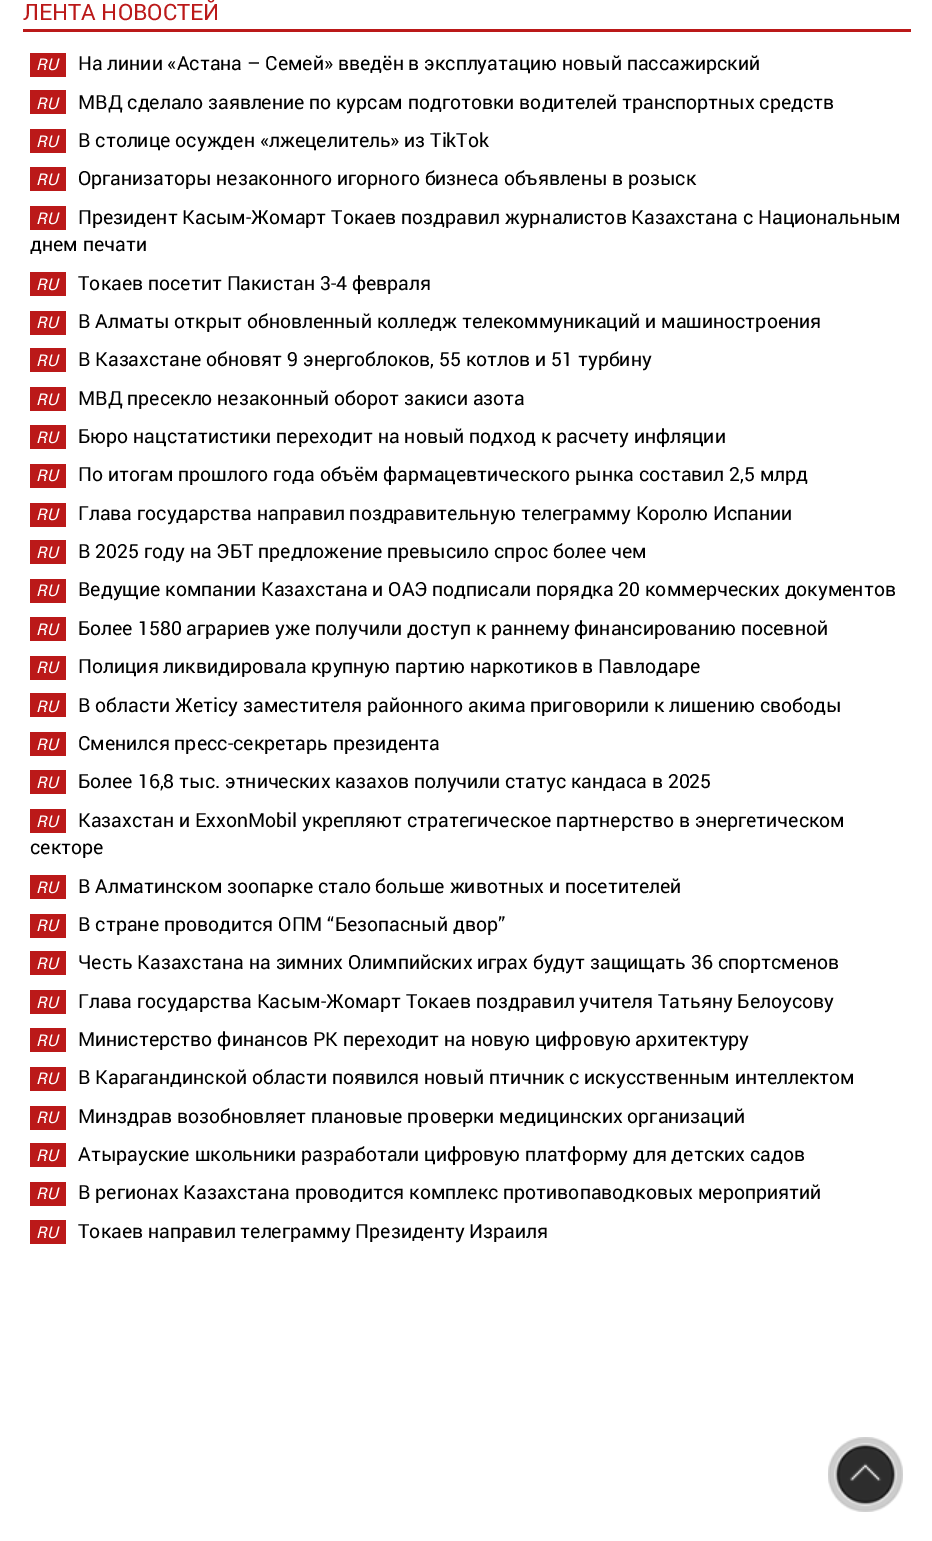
%!PS-Adobe-3.0
%%BoundingBox: 0 0 932 1541
%%LanguageLevel: 3
%%Pages: 1
%%EndComments
%%BeginProlog
/setink { 3 { 255 div 3 1 roll } repeat setrgbcolor } def
/usefont { [ exch dup neg 0 0 3 -1 roll 0 0 ] selectfont } def
/drawtext { setink usefont moveto show } def
/fillbox { setink rectfill } def
/drawimage { 5 dict begin { /h /w /y /x /name } { exch def } forall
  gsave x y translate w h scale
  w h 8 [w 0 0 h 0 0] name (r) file false 3 colorimage grestore end } def
%%EndProlog
%%BeginSetup
<< /PageSize [932 1541] >> setpagedevice
%%EndSetup
%%Page: 1 1
0 1541 translate 1 -1 scale
4 setmiterlimit
0 0 932 1541 255 255 255 fillbox
23 29 888 3 187 25 25 fillbox
(ЛЕНТА НОВОСТЕЙ) 23 20 /Roboto-Regular 22.5 187 25 25 drawtext
30 53 36 24 187 25 25 fillbox
(RU) 36 70 /Roboto-Italic 16 255 255 255 drawtext
(На линии «Астана – Семей» введён в эксплуатацию новый пассажирский) 78 70 /Roboto-Regular 19.5 0 0 0 drawtext
30 90 36 24 187 25 25 fillbox
(RU) 36 109 /Roboto-Italic 16 255 255 255 drawtext
(МВД сделало заявление по курсам подготовки водителей транспортных средств) 78 109 /Roboto-Regular 19.5 0 0 0 drawtext
30 129 36 24 187 25 25 fillbox
(RU) 36 147 /Roboto-Italic 16 255 255 255 drawtext
(В столице осужден «лжецелитель» из TikTok) 78 147 /Roboto-Regular 19.5 0 0 0 drawtext
30 167 36 24 187 25 25 fillbox
(RU) 36 185 /Roboto-Italic 16 255 255 255 drawtext
(Организаторы незаконного игорного бизнеса объявлены в розыск) 78 185 /Roboto-Regular 19.5 0 0 0 drawtext
30 206 36 24 187 25 25 fillbox
(RU) 36 224 /Roboto-Italic 16 255 255 255 drawtext
(Президент Касым-Жомарт Токаев поздравил журналистов Казахстана с Национальным) 78 224 /Roboto-Regular 19.5 0 0 0 drawtext
(днем печати) 30 251 /Roboto-Regular 19.5 0 0 0 drawtext
30 272 36 24 187 25 25 fillbox
(RU) 36 290 /Roboto-Italic 16 255 255 255 drawtext
(Токаев посетит Пакистан 3-4 февраля) 78 290 /Roboto-Regular 19.5 0 0 0 drawtext
30 311 36 24 187 25 25 fillbox
(RU) 36 328 /Roboto-Italic 16 255 255 255 drawtext
(В Алматы открыт обновленный колледж телекоммуникаций и машиностроения) 78 328 /Roboto-Regular 19.5 0 0 0 drawtext
30 348 36 24 187 25 25 fillbox
(RU) 36 366 /Roboto-Italic 16 255 255 255 drawtext
(В Казахстане обновят 9 энергоблоков, 55 котлов и 51 турбину) 78 366 /Roboto-Regular 19.5 0 0 0 drawtext
30 387 36 24 187 25 25 fillbox
(RU) 36 405 /Roboto-Italic 16 255 255 255 drawtext
(МВД пресекло незаконный оборот закиси азота) 78 405 /Roboto-Regular 19.5 0 0 0 drawtext
30 425 36 24 187 25 25 fillbox
(RU) 36 443 /Roboto-Italic 16 255 255 255 drawtext
(Бюро нацстатистики переходит на новый подход к расчету инфляции) 78 443 /Roboto-Regular 19.5 0 0 0 drawtext
30 464 36 24 187 25 25 fillbox
(RU) 36 481 /Roboto-Italic 16 255 255 255 drawtext
(По итогам прошлого года объём фармацевтического рынка составил 2,5 млрд) 78 481 /Roboto-Regular 19.5 0 0 0 drawtext
30 503 36 24 187 25 25 fillbox
(RU) 36 520 /Roboto-Italic 16 255 255 255 drawtext
(Глава государства направил поздравительную телеграмму Королю Испании) 78 520 /Roboto-Regular 19.5 0 0 0 drawtext
30 540 36 24 187 25 25 fillbox
(RU) 36 558 /Roboto-Italic 16 255 255 255 drawtext
(В 2025 году на ЭБТ предложение превысило спрос более чем) 78 558 /Roboto-Regular 19.5 0 0 0 drawtext
30 579 36 24 187 25 25 fillbox
(RU) 36 596 /Roboto-Italic 16 255 255 255 drawtext
(Ведущие компании Казахстана и ОАЭ подписали порядка 20 коммерческих документов) 78 596 /Roboto-Regular 19.5 0 0 0 drawtext
30 617 36 24 187 25 25 fillbox
(RU) 36 635 /Roboto-Italic 16 255 255 255 drawtext
(Более 1580 аграриев уже получили доступ к раннему финансированию посевной) 78 635 /Roboto-Regular 19.5 0 0 0 drawtext
30 656 36 24 187 25 25 fillbox
(RU) 36 673 /Roboto-Italic 16 255 255 255 drawtext
(Полиция ликвидировала крупную партию наркотиков в Павлодаре) 78 673 /Roboto-Regular 19.5 0 0 0 drawtext
30 693 36 24 187 25 25 fillbox
(RU) 36 712 /Roboto-Italic 16 255 255 255 drawtext
(В области Жетicу заместителя районного акима приговорили к лишению свободы) 78 712 /Roboto-Regular 19.5 0 0 0 drawtext
30 732 36 24 187 25 25 fillbox
(RU) 36 750 /Roboto-Italic 16 255 255 255 drawtext
(Сменился пресс-секретарь президента) 78 750 /Roboto-Regular 19.5 0 0 0 drawtext
30 770 36 24 187 25 25 fillbox
(RU) 36 788 /Roboto-Italic 16 255 255 255 drawtext
(Более 16,8 тыс. этнических казахов получили статус кандаса в 2025) 78 788 /Roboto-Regular 19.5 0 0 0 drawtext
30 809 36 24 187 25 25 fillbox
(RU) 36 827 /Roboto-Italic 16 255 255 255 drawtext
(Казахстан и ExxonMobil укрепляют стратегическое партнерство в энергетическом) 78 827 /Roboto-Regular 19.5 0 0 0 drawtext
(секторе) 30 854 /Roboto-Regular 19.5 0 0 0 drawtext
30 875 36 24 187 25 25 fillbox
(RU) 36 893 /Roboto-Italic 16 255 255 255 drawtext
(В Алматинском зоопарке стало больше животных и посетителей) 78 893 /Roboto-Regular 19.5 0 0 0 drawtext
30 914 36 24 187 25 25 fillbox
(RU) 36 931 /Roboto-Italic 16 255 255 255 drawtext
(В стране проводится ОПМ “Безопасный двор”) 78 931 /Roboto-Regular 19.5 0 0 0 drawtext
30 951 36 24 187 25 25 fillbox
(RU) 36 969 /Roboto-Italic 16 255 255 255 drawtext
(Честь Казахстана на зимних Олимпийских играх будут защищать 36 спортсменов) 78 969 /Roboto-Regular 19.5 0 0 0 drawtext
30 990 36 24 187 25 25 fillbox
(RU) 36 1008 /Roboto-Italic 16 255 255 255 drawtext
(Глава государства Касым-Жомарт Токаев поздравил учителя Татьяну Белоусову) 78 1008 /Roboto-Regular 19.5 0 0 0 drawtext
30 1028 36 24 187 25 25 fillbox
(RU) 36 1046 /Roboto-Italic 16 255 255 255 drawtext
(Министерство финансов РК переходит на новую цифровую архитектуру) 78 1046 /Roboto-Regular 19.5 0 0 0 drawtext
30 1067 36 24 187 25 25 fillbox
(RU) 36 1084 /Roboto-Italic 16 255 255 255 drawtext
(В Карагандинской области появился новый птичник с искусственным интеллектом) 78 1084 /Roboto-Regular 19.5 0 0 0 drawtext
30 1106 36 24 187 25 25 fillbox
(RU) 36 1123 /Roboto-Italic 16 255 255 255 drawtext
(Минздрав возобновляет плановые проверки медицинских организаций) 78 1123 /Roboto-Regular 19.5 0 0 0 drawtext
30 1143 36 24 187 25 25 fillbox
(RU) 36 1161 /Roboto-Italic 16 255 255 255 drawtext
(Атырауские школьники разработали цифровую платформу для детских садов) 78 1161 /Roboto-Regular 19.5 0 0 0 drawtext
30 1182 36 24 187 25 25 fillbox
(RU) 36 1199 /Roboto-Italic 16 255 255 255 drawtext
(В регионах Казахстана проводится комплекс противопаводковых мероприятий) 78 1199 /Roboto-Regular 19.5 0 0 0 drawtext
30 1220 36 24 187 25 25 fillbox
(RU) 36 1238 /Roboto-Italic 16 255 255 255 drawtext
(Токаев направил телеграмму Президенту Израиля) 78 1238 /Roboto-Regular 19.5 0 0 0 drawtext
(assets/img1.rgb) 828 1437 75 75 drawimage
showpage
%%EOF
